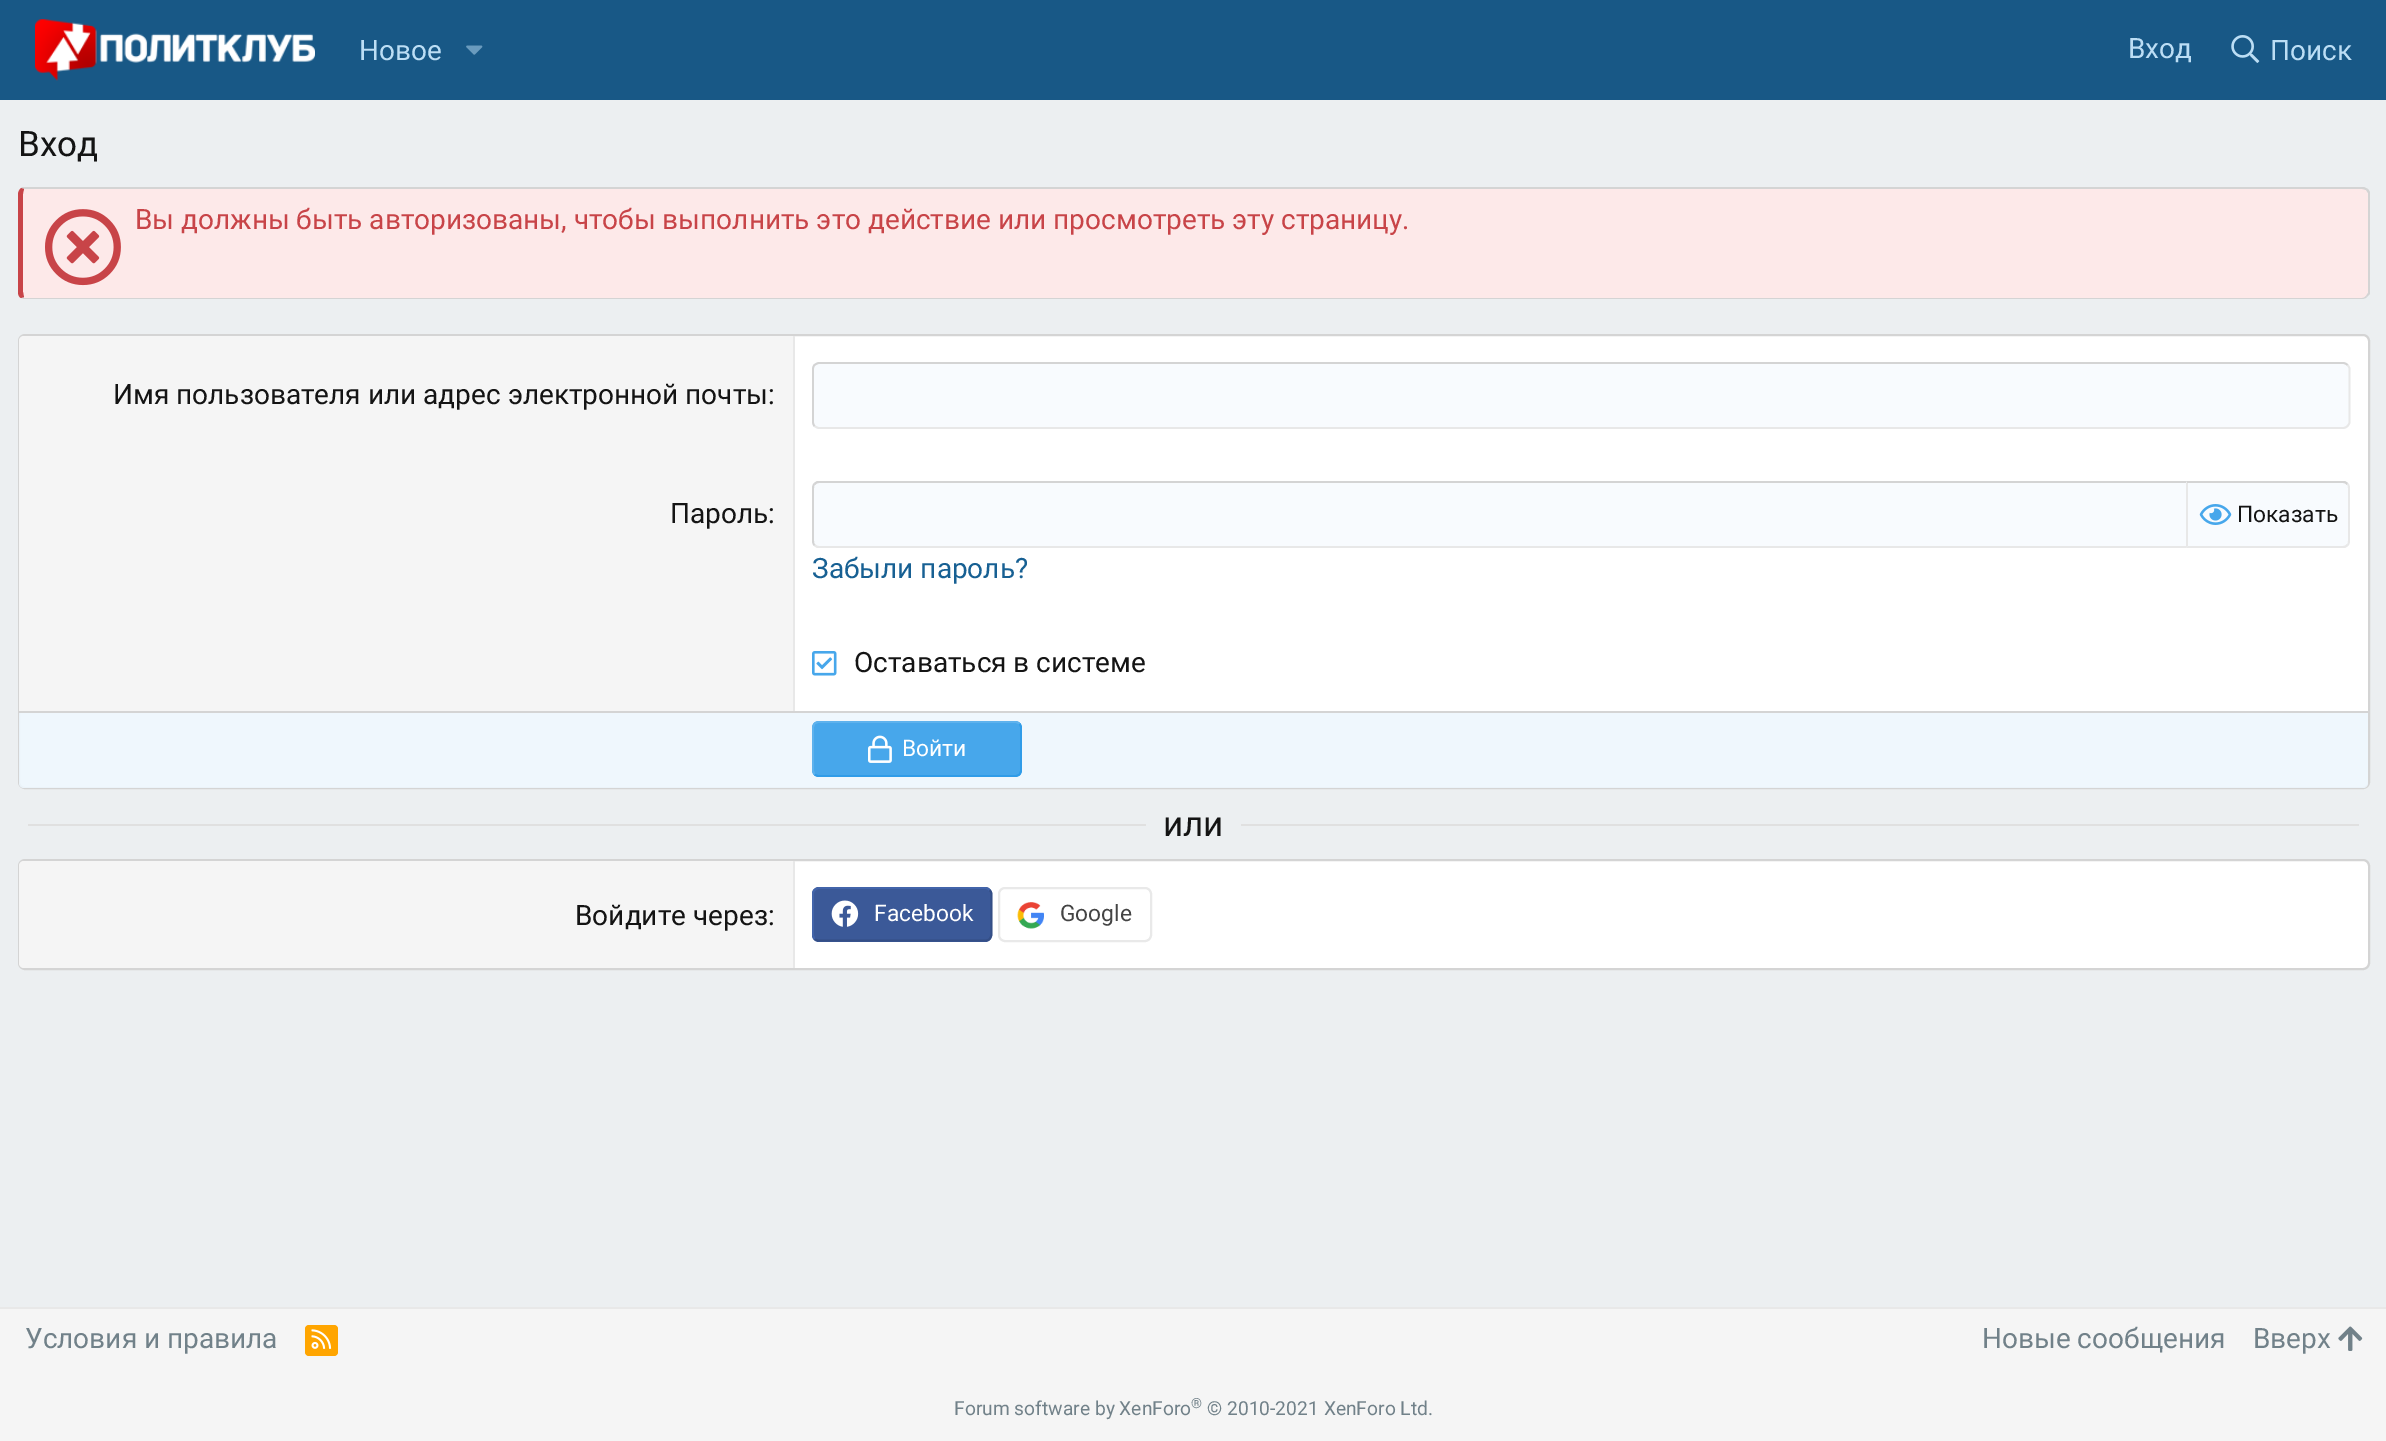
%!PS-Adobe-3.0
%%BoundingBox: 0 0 2386 1441
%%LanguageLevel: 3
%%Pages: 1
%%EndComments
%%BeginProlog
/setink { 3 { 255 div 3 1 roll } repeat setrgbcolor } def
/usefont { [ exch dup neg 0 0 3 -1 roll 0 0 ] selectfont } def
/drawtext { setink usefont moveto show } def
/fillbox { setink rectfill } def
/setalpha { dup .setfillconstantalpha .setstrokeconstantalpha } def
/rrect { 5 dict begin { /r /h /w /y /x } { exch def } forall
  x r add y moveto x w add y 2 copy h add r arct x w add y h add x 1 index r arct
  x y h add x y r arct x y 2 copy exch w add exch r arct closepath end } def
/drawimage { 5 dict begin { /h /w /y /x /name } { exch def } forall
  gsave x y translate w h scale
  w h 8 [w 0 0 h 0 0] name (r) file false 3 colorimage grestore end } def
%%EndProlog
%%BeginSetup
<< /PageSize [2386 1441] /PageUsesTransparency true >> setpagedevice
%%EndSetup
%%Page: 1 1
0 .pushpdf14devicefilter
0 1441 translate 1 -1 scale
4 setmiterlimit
0 0 2386 1441 236 239 241 fillbox
0 0 2386 100 24 88 134 fillbox
(assets/img1.rgb) 35 19 280 62 drawimage
(Новое) 359 60 /Roboto-Regular 28 188 222 245 drawtext
(assets/img2.rgb) 466 45 17 10 drawimage
(Вход) 2128 58 /Roboto-Regular 28 188 222 245 drawtext
(assets/img3.rgb) 2231 35 29 28 drawimage
(Поиск) 2270 60 /Roboto-Regular 28 188 222 245 drawtext
(Вход) 18 156 /Roboto-Regular 35 20 20 20 drawtext
253 233 233 setink
24 189 moveto 2362 189 lineto 2365 189 2368 191 2368 194 curveto 2368 292 lineto 2368 295 2365 298 2362 298 curveto 24 298 lineto 24 298 23 295 23 292 curveto 23 194 lineto 23 191 24 189 24 189 curveto closepath fill
212 212 212 setink
24 189 moveto 21 188 lineto 22 187 lineto 2364 187 lineto 2368 189 lineto 2366 190 lineto 2365 190 2364 189 2362 189 curveto closepath fill
2370 294 moveto 2367 297 lineto 2366 296 lineto 2368 293 lineto 2368 193 lineto 2366 190 lineto 2368 189 lineto 2370 192 lineto closepath fill
2367 297 moveto 2366 298 2364 299 2362 299 curveto 24 299 lineto 21 298 lineto 24 297 lineto 24 298 lineto 2362 298 lineto 2364 298 2365 297 2366 296 curveto closepath fill
200 68 72 setink
21 298 moveto 19 297 18 295 18 292 curveto 18 194 lineto 18 192 19 190 21 188 curveto 24 189 lineto 24 190 23 192 23 194 curveto 23 292 lineto 24 297 lineto closepath fill
(assets/img4.rgb) 45 209 76 77 drawimage
(Вы должны быть авторизованы, чтобы выполнить это действие или просмотреть эту страницу.) 135 229 /Roboto-Regular 28 200 68 72 drawtext
255 255 255 setink
19 335 2350 453 6 rrect gsave fill grestore
212 212 212 setink
2 setlinewidth
stroke
245 245 245 setink
24 336 moveto 795 336 lineto 795 455 lineto 19 455 lineto 19 341 lineto 19 338 21 336 24 336 curveto closepath fill
793 336 2 375 232 232 232 fillbox
(Имя пользователя или адрес электронной почты:) 113 404 /Roboto-Regular 28 20 20 20 drawtext
248 251 254 setink
812 362 1538 67 7 rrect fill
232 232 232 setink
1.8 setlinewidth
2347.5 365 moveto 2348.5 366 2349.5 367.5 2349.5 369 curveto 2349.5 422 lineto 2349.5 423.5 2348.5 425 2347.5 426 curveto 2346.5 427 2345 428 2343 428 curveto 819 428 lineto 817.5 428 816 427 814.5 426 curveto stroke
212 212 212 setink
814.5 426 moveto 813.5 425 813 423.5 813 422 curveto 813 369 lineto 813 367.5 813.5 366 814.5 365 curveto 816 364 817.5 363 819 363 curveto 2343 363 lineto 2345 363 2346.5 364 2347.5 365 curveto stroke
19 455 774 256 245 245 245 fillbox
(Пароль:) 670 523 /Roboto-Regular 28 20 20 20 drawtext
248 251 254 setink
819 481 moveto 2186 481 lineto 2186 548 lineto 819 548 lineto 815 548 812 545 812 541 curveto 812 488 lineto 812 484 815 481 819 481 curveto closepath fill
212 212 212 setink
819 483 moveto 817 483 816 484 815 485 curveto 814 483 lineto 817 481 lineto 2186 481 lineto 2186 483 lineto closepath fill
232 232 232 setink
2186 548 moveto 817 548 lineto 814 546 lineto 815 544 lineto 816 545 817 546 819 546 curveto 2186 546 lineto closepath fill
212 212 212 setink
812 488 moveto 812 541 lineto 812 543 813 545 814 546 curveto 815 544 lineto 814 544 814 542 814 541 curveto 814 488 lineto 814 487 814 485 815 485 curveto 814 483 lineto 813 484 812 486 812 488 curveto closepath fill
248 251 254 setink
2186 481 moveto 2343 481 lineto 2347 481 2350 484 2350 488 curveto 2350 541 lineto 2350 545 2347 548 2343 548 curveto 2186 548 lineto closepath fill
212 212 212 setink
2188 483 moveto 2188 484 lineto 2186 481 lineto 2345 481 lineto 2348 483 lineto 2347 485 lineto 2346 484 2345 483 2343 483 curveto closepath fill
232 232 232 setink
2348 483 moveto 2349 484 2350 486 2350 488 curveto 2350 541 lineto 2350 543 2349 545 2348 546 curveto 2347 544 lineto 2348 544 2348 542 2348 541 curveto 2348 488 lineto 2348 487 2348 485 2347 485 curveto closepath fill
2186 548 moveto 2188 546 lineto 2343 546 lineto 2345 546 2346 545 2347 544 curveto 2348 546 lineto 2345 548 lineto closepath fill
2186 548 moveto 2186 482 lineto 2188 484 lineto 2188 546 lineto closepath fill
(assets/img5.rgb) 2199 504 33 21 drawimage
(Показать) 2237 522 /Roboto-Regular 22.75 20 20 20 drawtext
(Забыли пароль?) 812 578 /Roboto-Regular 28 23 96 147 drawtext
(assets/img6.rgb) 812 651 25 25 drawimage
(Оставаться в системе) 854 672 /Roboto-Regular 28 20 20 20 drawtext
0.9 setalpha
237 246 253 setink
19 711 moveto 2368 711 lineto 2368 783 lineto 2368 786 2366 788 2363 788 curveto 24 788 lineto 21 788 19 786 19 783 curveto closepath fill
1 setalpha
19 711 2349 2 212 212 212 fillbox
71 167 235 setink
812 721 210 56 7 rrect fill
48 156 232 setink
1019.5 723.5 moveto 1020.5 725 1021 726.5 1021 728 curveto 1021 770 lineto 1021 771.5 1020.5 773 1019.5 774.5 curveto 1018 775.5 1016.5 776 1015 776 curveto 819 776 lineto 817.5 776 816 775.5 814.5 774.5 curveto stroke
94 178 237 setink
814.5 774.5 moveto 813.5 773 813 771.5 813 770 curveto 813 728 lineto 813 726.5 813.5 725 814.5 723.5 curveto 816 722.5 817.5 722 819 722 curveto 1015 722 lineto 1016.5 722 1018 722.5 1019.5 723.5 curveto stroke
(assets/img7.rgb) 868 735 24 28 drawimage
(Войти) 902 756 /Roboto-Regular 22.75 255 255 255 drawtext
28 824 1118 2 224 224 224 fillbox
(или) 1163 836 /Roboto-Regular 35 20 20 20 drawtext
1241 824 1118 2 224 224 224 fillbox
255 255 255 setink
19 860 2350 109 6 rrect gsave fill grestore
212 212 212 setink
2 setlinewidth
stroke
245 245 245 setink
24 861 moveto 795 861 lineto 795 968 lineto 24 968 lineto 21 968 19 966 19 963 curveto 19 866 lineto 19 863 21 861 24 861 curveto closepath fill
793 861 2 107 232 232 232 fillbox
(Войдите через:) 575 925 /Roboto-Regular 28 20 20 20 drawtext
59 89 152 setink
812 887 180 55 7 rrect fill
52 78 134 setink
1.8 setlinewidth
989.5 890 moveto 990.5 891 991.5 892.5 991.5 894 curveto 991.5 934.5 lineto 991.5 936 990.5 937.5 989.5 939 curveto 988.5 940 987 940.5 985 940.5 curveto 819 940.5 lineto 817.5 940.5 816 940 814.5 939 curveto stroke
66 100 170 setink
814.5 939 moveto 813.5 937.5 813 936 813 934.5 curveto 813 894 lineto 813 892.5 813.5 891 814.5 890 curveto 816 889 817.5 888 819 888 curveto 985 888 lineto 987 888 988.5 889 989.5 890 curveto stroke
(assets/img8.rgb) 831 900 28 27 drawimage
(Facebook) 874 921 /Roboto-Regular 22.75 255 255 255 drawtext
233 233 233 setink
2 setlinewidth
999 888 152 53 6 rrect stroke
(assets/img9.rgb) 1017 902 27 27 drawimage
(Google) 1060 921 /Roboto-Regular 22.75 68 68 68 drawtext
0 1309 2386 132 245 245 245 fillbox
0 1307 2386 2 232 232 232 fillbox
(Условия и правила) 25 1348 /Roboto-Regular 28 113 129 137 drawtext
255 165 0 setink
305 1325 33 31 4 rrect fill
(assets/img10.rgb) 311 1329 21 20 drawimage
(Новые сообщения) 1982 1348 /Roboto-Regular 28 113 129 137 drawtext
(Вверх) 2253 1348 /Roboto-Regular 28 113 129 137 drawtext
(assets/img11.rgb) 2338 1326 25 25 drawimage
(Forum software by XenForo) 954 1415 /Roboto-Regular 19.25 113 129 137 drawtext
(®) 1191 1408 /Roboto-Regular 14 113 129 137 drawtext
(© 2010-2021 XenForo Ltd.) 1207 1415 /Roboto-Regular 19.25 113 129 137 drawtext
.poppdf14devicefilter showpage
%%EOF
